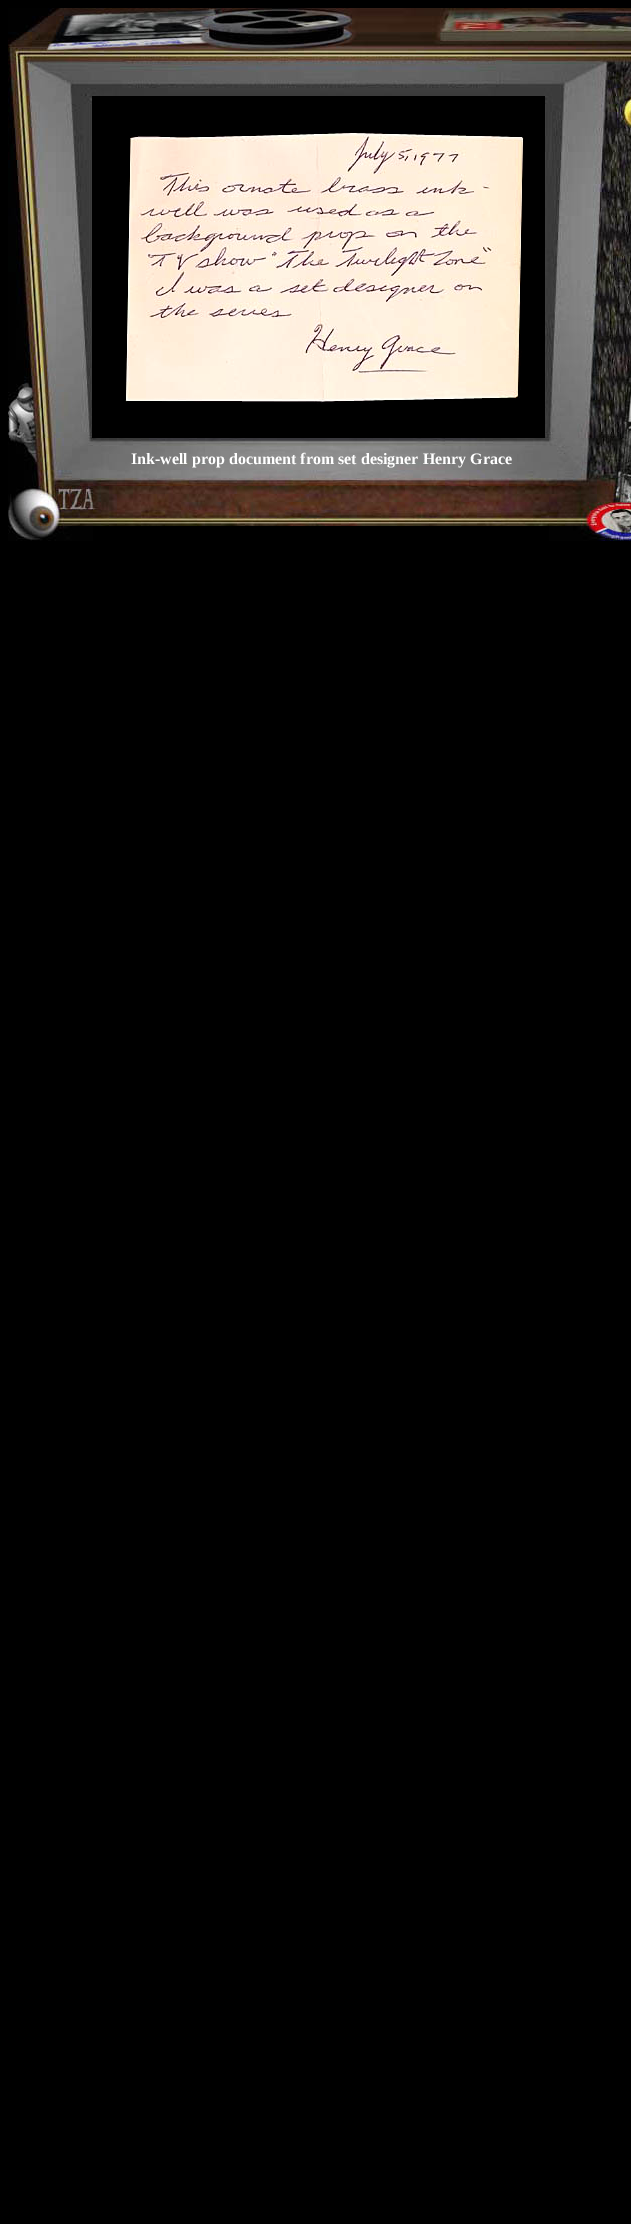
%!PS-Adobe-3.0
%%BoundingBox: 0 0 631 2224
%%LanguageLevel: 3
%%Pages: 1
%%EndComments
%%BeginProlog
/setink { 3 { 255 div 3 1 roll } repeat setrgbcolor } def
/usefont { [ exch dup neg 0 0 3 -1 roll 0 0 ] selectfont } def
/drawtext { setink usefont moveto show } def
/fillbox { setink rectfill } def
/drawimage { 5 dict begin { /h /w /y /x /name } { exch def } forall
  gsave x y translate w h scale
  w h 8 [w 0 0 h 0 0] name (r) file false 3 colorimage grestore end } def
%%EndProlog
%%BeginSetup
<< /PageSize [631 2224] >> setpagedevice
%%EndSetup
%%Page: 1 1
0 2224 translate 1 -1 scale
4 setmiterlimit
0 0 631 2224 0 0 0 fillbox
(assets/img1.rgb) 8 8 623 88 drawimage
(assets/img2.rgb) 8 96 84 342 drawimage
(assets/img3.rgb) 545 96 86 342 drawimage
(assets/img4.rgb) 125 131 399 273 drawimage
(assets/img5.rgb) 8 438 85 103 drawimage
(assets/img6.rgb) 93 438 456 88 drawimage
(Ink-well prop document from set designer Henry Grace) 131 464 /LiberationSerif-Bold 16 255 255 255 drawtext
(assets/img7.rgb) 549 438 82 103 drawimage
showpage
%%EOF
